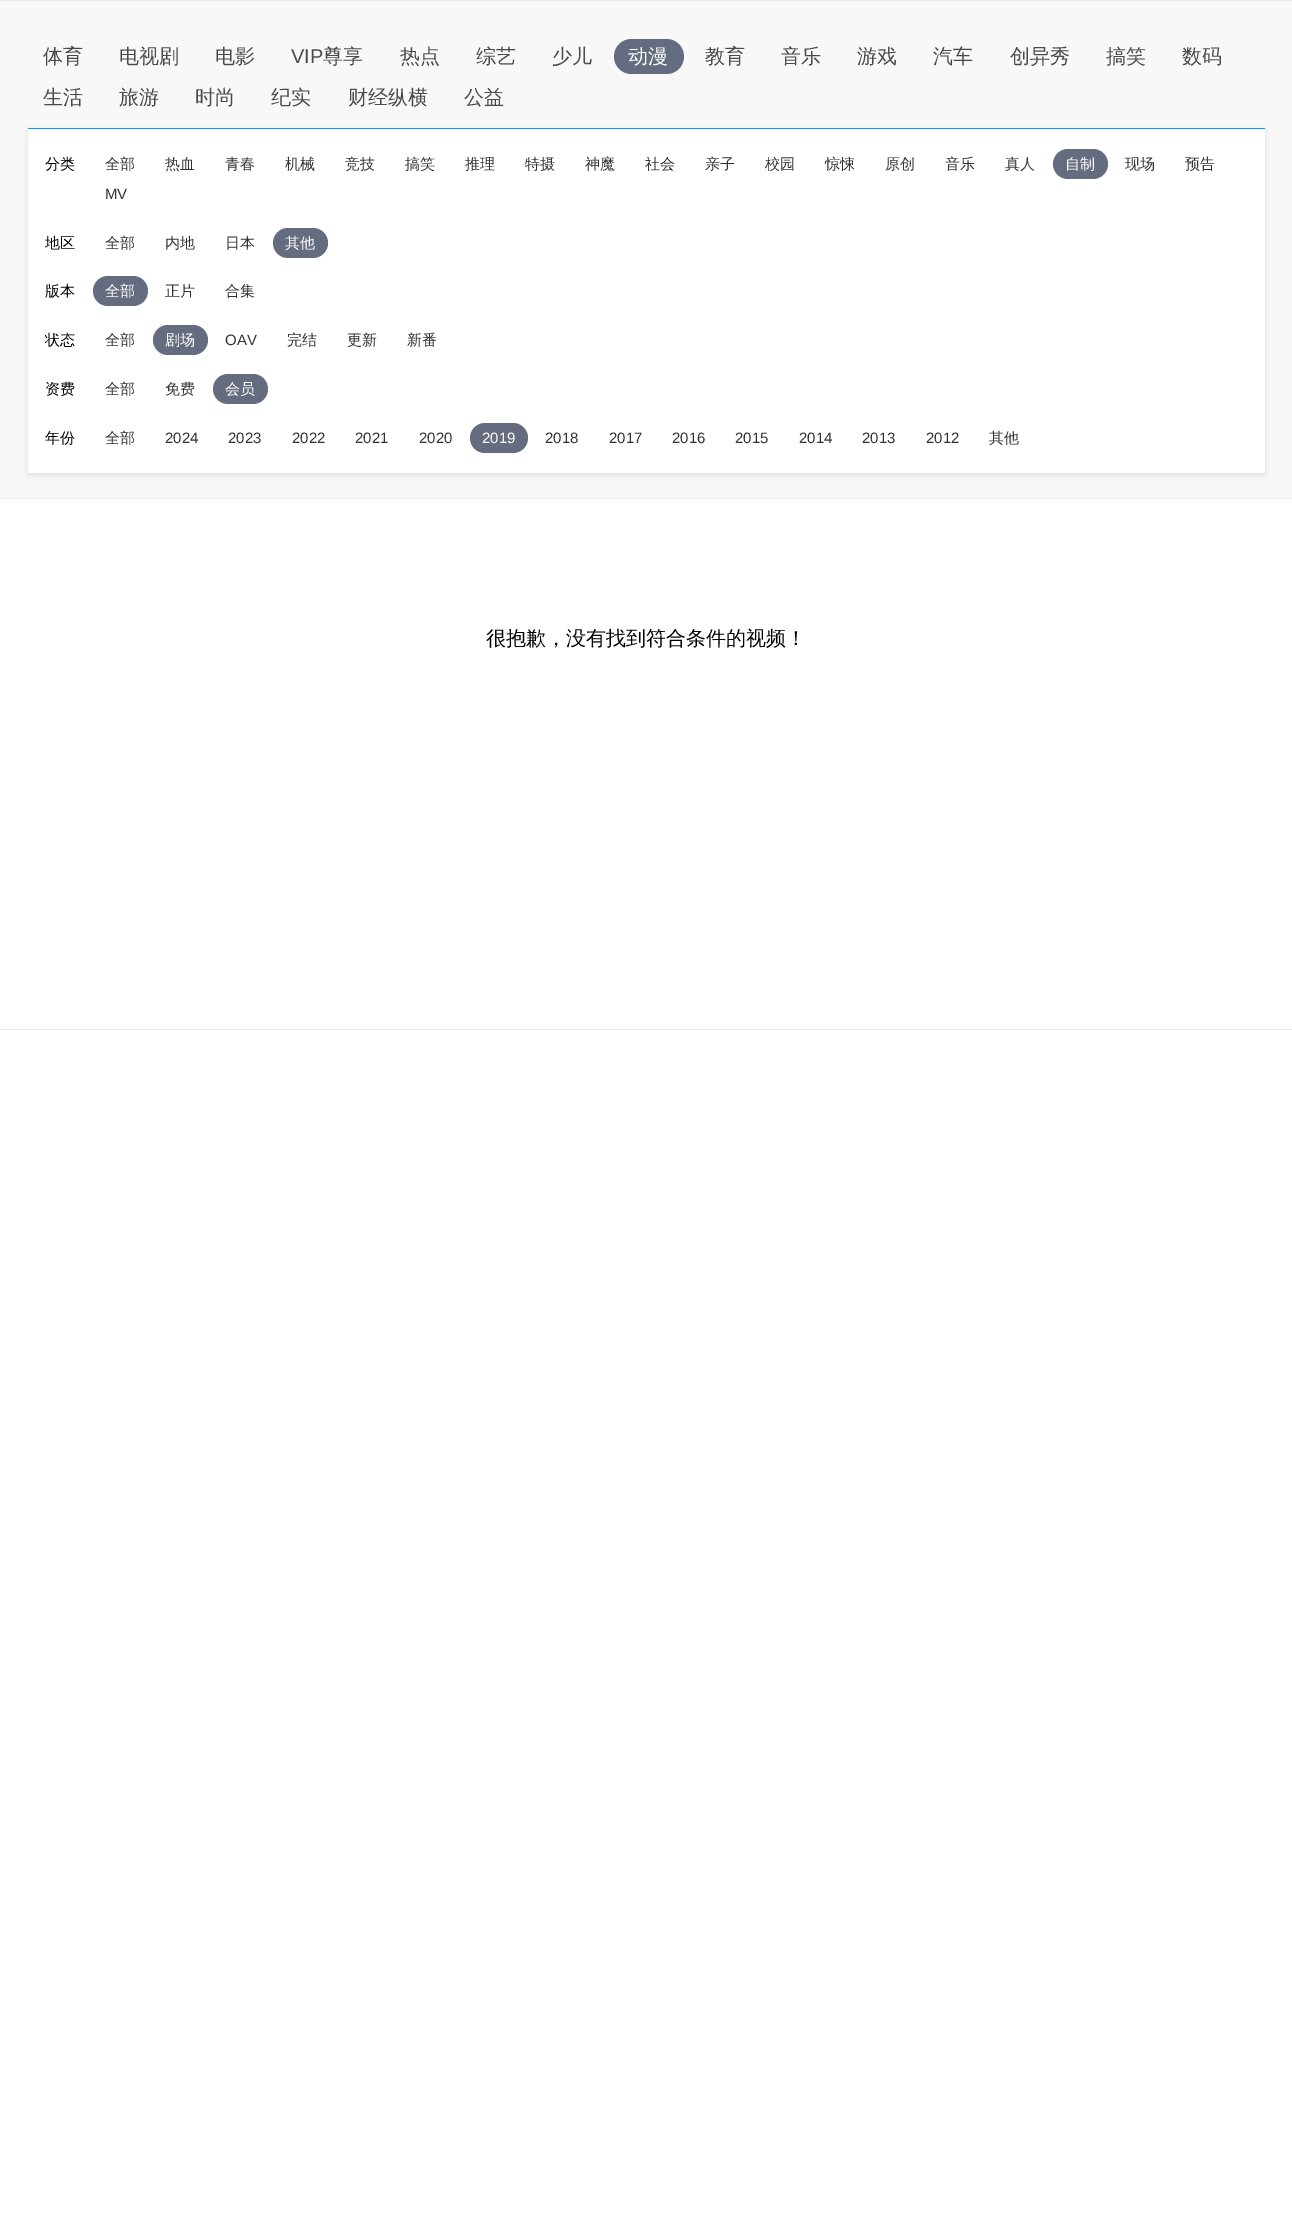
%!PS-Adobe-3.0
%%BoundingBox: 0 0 1292 2225
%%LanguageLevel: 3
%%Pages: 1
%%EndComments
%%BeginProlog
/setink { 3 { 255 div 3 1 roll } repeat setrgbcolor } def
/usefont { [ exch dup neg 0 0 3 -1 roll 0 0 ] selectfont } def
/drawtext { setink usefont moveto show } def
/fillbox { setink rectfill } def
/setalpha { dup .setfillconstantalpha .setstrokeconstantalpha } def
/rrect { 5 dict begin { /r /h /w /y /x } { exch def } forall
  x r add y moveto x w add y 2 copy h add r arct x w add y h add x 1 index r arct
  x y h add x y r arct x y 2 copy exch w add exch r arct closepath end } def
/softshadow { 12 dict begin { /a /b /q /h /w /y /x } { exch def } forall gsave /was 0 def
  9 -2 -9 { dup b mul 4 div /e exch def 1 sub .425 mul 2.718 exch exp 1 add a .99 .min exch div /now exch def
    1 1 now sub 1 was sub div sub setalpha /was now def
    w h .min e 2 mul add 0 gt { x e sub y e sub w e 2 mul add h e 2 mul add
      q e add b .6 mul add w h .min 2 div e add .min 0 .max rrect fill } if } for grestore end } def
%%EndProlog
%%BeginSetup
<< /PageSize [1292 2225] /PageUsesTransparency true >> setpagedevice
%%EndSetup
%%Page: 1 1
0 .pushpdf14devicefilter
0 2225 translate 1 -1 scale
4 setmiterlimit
0 0 1292 2225 255 255 255 fillbox
0 1 1292 497 248 248 248 fillbox
0 0 1292 1 235 235 235 fillbox
0 498 1292 1 235 235 235 fillbox
(体育) 43 63 /WenQuanYiZenHei-Medium 20 74 74 74 drawtext
(电视剧) 119 63 /WenQuanYiZenHei-Medium 20 74 74 74 drawtext
(电影) 215 63 /WenQuanYiZenHei-Medium 20 74 74 74 drawtext
(VIP) 291 63 /LiberationSans-Regular 20 74 74 74 drawtext
(尊享) 323 63 /WenQuanYiZenHei-Medium 20 74 74 74 drawtext
(热点) 400 63 /WenQuanYiZenHei-Medium 20 74 74 74 drawtext
(综艺) 476 63 /WenQuanYiZenHei-Medium 20 74 74 74 drawtext
(少儿) 552 63 /WenQuanYiZenHei-Medium 20 74 74 74 drawtext
101 108 128 setink
614 39 70 35 17.5 rrect fill
(动漫) 628 63 /WenQuanYiZenHei-Medium 20 255 255 255 drawtext
(教育) 705 63 /WenQuanYiZenHei-Medium 20 74 74 74 drawtext
(音乐) 781 63 /WenQuanYiZenHei-Medium 20 74 74 74 drawtext
(游戏) 857 63 /WenQuanYiZenHei-Medium 20 74 74 74 drawtext
(汽车) 933 63 /WenQuanYiZenHei-Medium 20 74 74 74 drawtext
(创异秀) 1010 63 /WenQuanYiZenHei-Medium 20 74 74 74 drawtext
(搞笑) 1106 63 /WenQuanYiZenHei-Medium 20 74 74 74 drawtext
(数码) 1182 63 /WenQuanYiZenHei-Medium 20 74 74 74 drawtext
(生活) 43 104 /WenQuanYiZenHei-Medium 20 74 74 74 drawtext
(旅游) 119 104 /WenQuanYiZenHei-Medium 20 74 74 74 drawtext
(时尚) 195 104 /WenQuanYiZenHei-Medium 20 74 74 74 drawtext
(纪实) 271 104 /WenQuanYiZenHei-Medium 20 74 74 74 drawtext
(财经纵横) 348 104 /WenQuanYiZenHei-Medium 20 74 74 74 drawtext
(公益) 464 104 /WenQuanYiZenHei-Medium 20 74 74 74 drawtext
0 0 0 setink
28 130 1237 345 0 2.5 0.1 softshadow
28 129 1237 344 255 255 255 fillbox
28 128 1237 1 0 155 255 fillbox
(分类) 45 169 /WenQuanYiZenHei-Medium 15 0 0 0 drawtext
(全部) 105 169 /WenQuanYiZenHei-Medium 15 50 50 50 drawtext
(热血) 165 169 /WenQuanYiZenHei-Medium 15 50 50 50 drawtext
(青春) 225 169 /WenQuanYiZenHei-Medium 15 50 50 50 drawtext
(机械) 285 169 /WenQuanYiZenHei-Medium 15 50 50 50 drawtext
(竞技) 345 169 /WenQuanYiZenHei-Medium 15 50 50 50 drawtext
(搞笑) 405 169 /WenQuanYiZenHei-Medium 15 50 50 50 drawtext
(推理) 465 169 /WenQuanYiZenHei-Medium 15 50 50 50 drawtext
(特摄) 525 169 /WenQuanYiZenHei-Medium 15 50 50 50 drawtext
(神魔) 585 169 /WenQuanYiZenHei-Medium 15 50 50 50 drawtext
(社会) 645 169 /WenQuanYiZenHei-Medium 15 50 50 50 drawtext
(亲子) 705 169 /WenQuanYiZenHei-Medium 15 50 50 50 drawtext
(校园) 765 169 /WenQuanYiZenHei-Medium 15 50 50 50 drawtext
(惊悚) 825 169 /WenQuanYiZenHei-Medium 15 50 50 50 drawtext
(原创) 885 169 /WenQuanYiZenHei-Medium 15 50 50 50 drawtext
(音乐) 945 169 /WenQuanYiZenHei-Medium 15 50 50 50 drawtext
(真人) 1005 169 /WenQuanYiZenHei-Medium 15 50 50 50 drawtext
101 108 128 setink
1053 149 55 30 15 rrect fill
(自制) 1065 169 /WenQuanYiZenHei-Medium 15 255 255 255 drawtext
(现场) 1125 169 /WenQuanYiZenHei-Medium 15 50 50 50 drawtext
(预告) 1185 169 /WenQuanYiZenHei-Medium 15 50 50 50 drawtext
(MV) 105 199 /LiberationSans-Regular 15 50 50 50 drawtext
(地区) 45 248 /WenQuanYiZenHei-Medium 15 0 0 0 drawtext
(全部) 105 248 /WenQuanYiZenHei-Medium 15 50 50 50 drawtext
(内地) 165 248 /WenQuanYiZenHei-Medium 15 50 50 50 drawtext
(日本) 225 248 /WenQuanYiZenHei-Medium 15 50 50 50 drawtext
101 108 128 setink
273 228 55 30 15 rrect fill
(其他) 285 248 /WenQuanYiZenHei-Medium 15 255 255 255 drawtext
(版本) 45 296 /WenQuanYiZenHei-Medium 15 0 0 0 drawtext
101 108 128 setink
93 276 55 30 15 rrect fill
(全部) 105 296 /WenQuanYiZenHei-Medium 15 255 255 255 drawtext
(正片) 165 296 /WenQuanYiZenHei-Medium 15 50 50 50 drawtext
(合集) 225 296 /WenQuanYiZenHei-Medium 15 50 50 50 drawtext
(状态) 45 345 /WenQuanYiZenHei-Medium 15 0 0 0 drawtext
(全部) 105 345 /WenQuanYiZenHei-Medium 15 50 50 50 drawtext
101 108 128 setink
153 325 55 30 15 rrect fill
(剧场) 165 345 /WenQuanYiZenHei-Medium 15 255 255 255 drawtext
(OAV) 225 345 /LiberationSans-Regular 15 50 50 50 drawtext
(完结) 287 345 /WenQuanYiZenHei-Medium 15 50 50 50 drawtext
(更新) 347 345 /WenQuanYiZenHei-Medium 15 50 50 50 drawtext
(新番) 407 345 /WenQuanYiZenHei-Medium 15 50 50 50 drawtext
(资费) 45 394 /WenQuanYiZenHei-Medium 15 0 0 0 drawtext
(全部) 105 394 /WenQuanYiZenHei-Medium 15 50 50 50 drawtext
(免费) 165 394 /WenQuanYiZenHei-Medium 15 50 50 50 drawtext
101 108 128 setink
213 374 55 30 15 rrect fill
(会员) 225 394 /WenQuanYiZenHei-Medium 15 255 255 255 drawtext
(年份) 45 443 /WenQuanYiZenHei-Medium 15 0 0 0 drawtext
(全部) 105 443 /WenQuanYiZenHei-Medium 15 50 50 50 drawtext
(2024) 165 443 /LiberationSans-Regular 15 50 50 50 drawtext
(2023) 228 443 /LiberationSans-Regular 15 50 50 50 drawtext
(2022) 292 443 /LiberationSans-Regular 15 50 50 50 drawtext
(2021) 355 443 /LiberationSans-Regular 15 50 50 50 drawtext
(2020) 419 443 /LiberationSans-Regular 15 50 50 50 drawtext
101 108 128 setink
470 423 58 30 15 rrect fill
(2019) 482 443 /LiberationSans-Regular 15 255 255 255 drawtext
(2018) 545 443 /LiberationSans-Regular 15 50 50 50 drawtext
(2017) 609 443 /LiberationSans-Regular 15 50 50 50 drawtext
(2016) 672 443 /LiberationSans-Regular 15 50 50 50 drawtext
(2015) 735 443 /LiberationSans-Regular 15 50 50 50 drawtext
(2014) 799 443 /LiberationSans-Regular 15 50 50 50 drawtext
(2013) 862 443 /LiberationSans-Regular 15 50 50 50 drawtext
(2012) 926 443 /LiberationSans-Regular 15 50 50 50 drawtext
(其他) 989 443 /WenQuanYiZenHei-Medium 15 50 50 50 drawtext
0 1029 1292 1 235 235 235 fillbox
(很抱歉，没有找到符合条件的视频！) 486 645 /WenQuanYiZenHei-Medium 20 0 0 0 drawtext
.poppdf14devicefilter showpage
%%EOF
